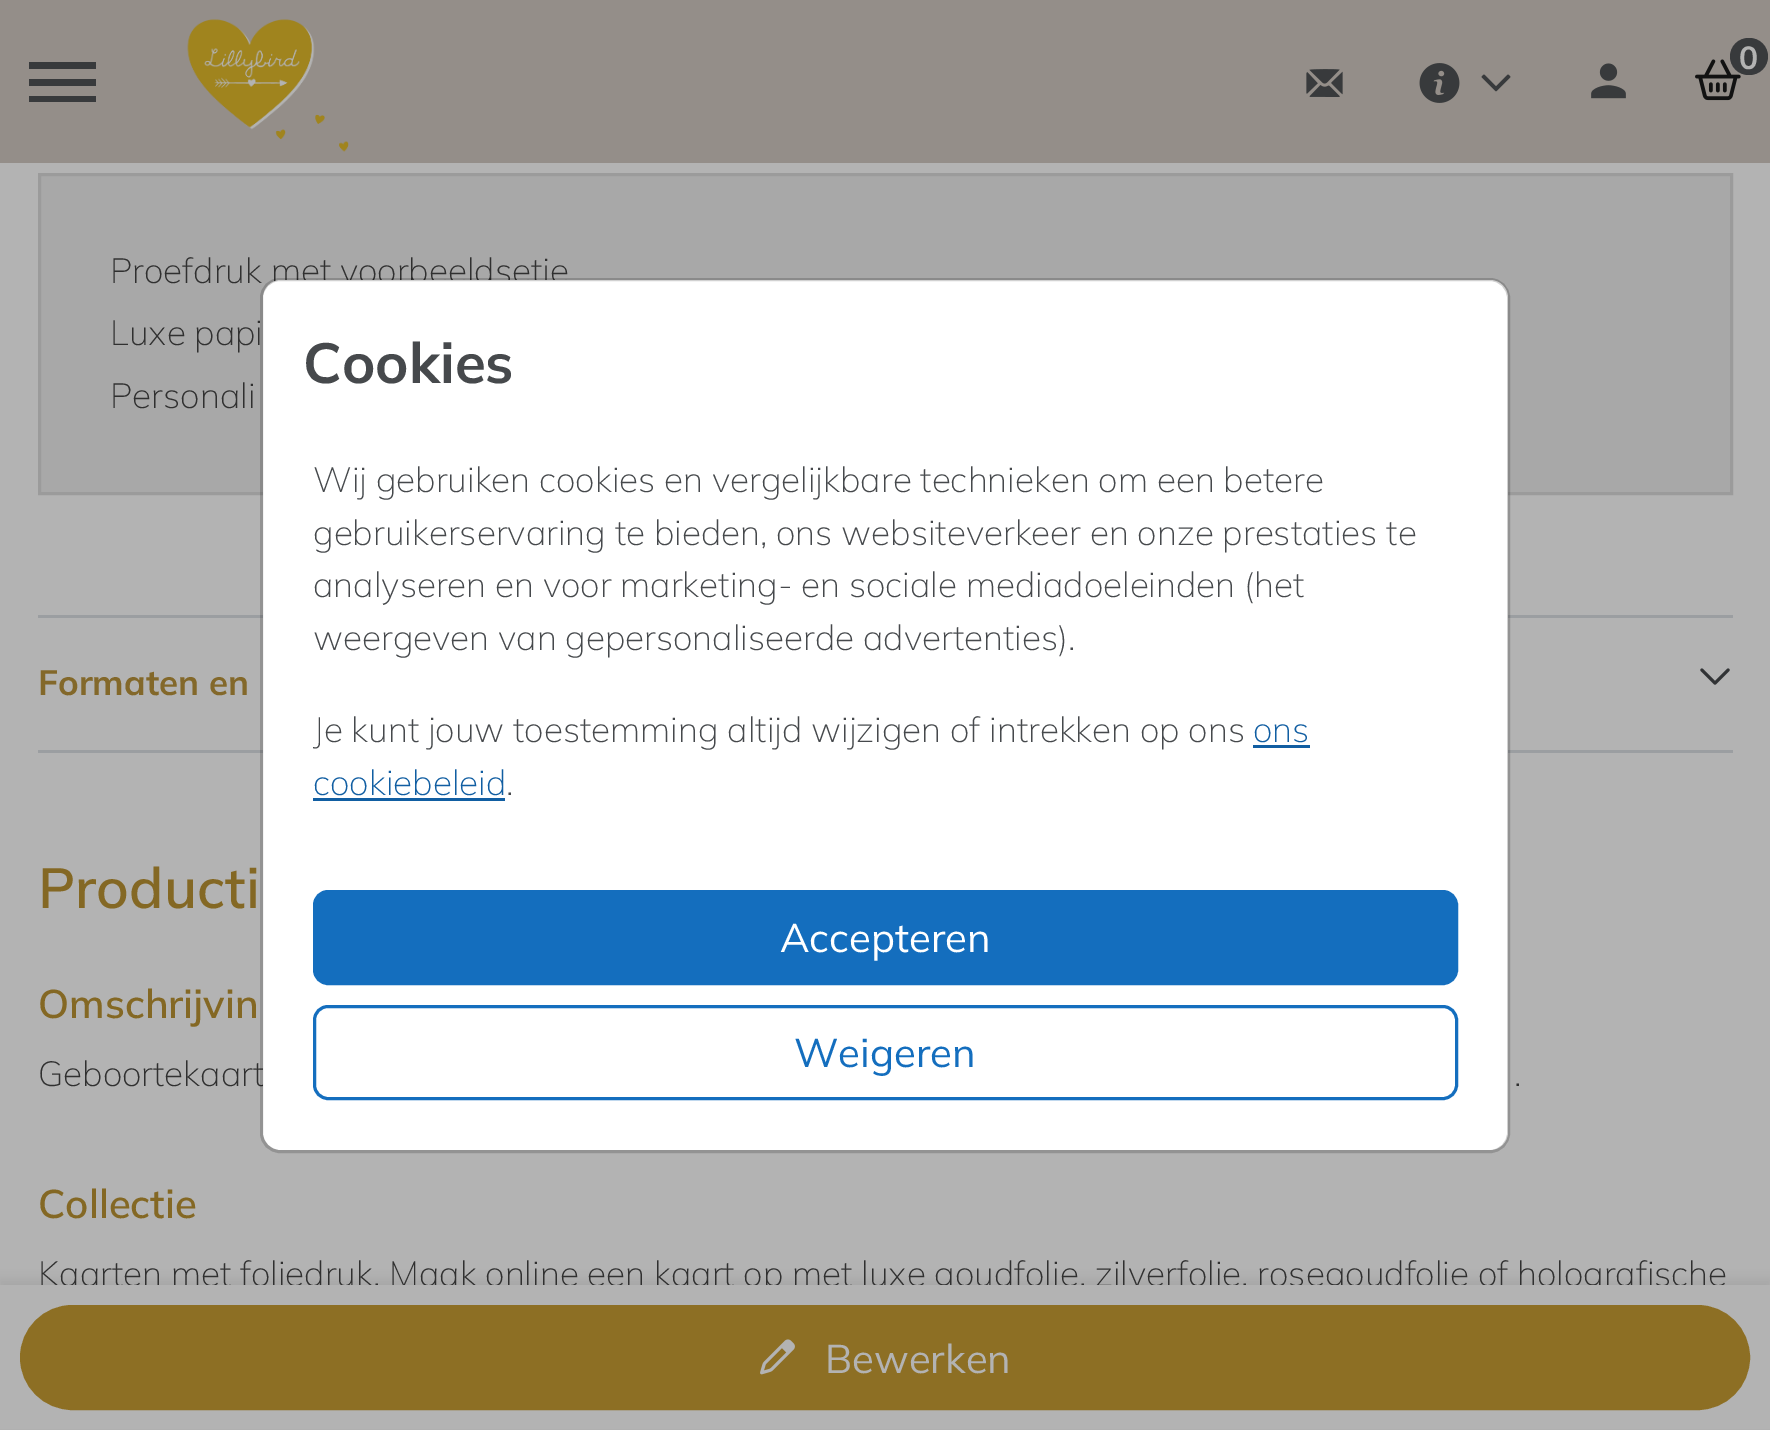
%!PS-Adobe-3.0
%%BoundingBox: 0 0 1770 1430
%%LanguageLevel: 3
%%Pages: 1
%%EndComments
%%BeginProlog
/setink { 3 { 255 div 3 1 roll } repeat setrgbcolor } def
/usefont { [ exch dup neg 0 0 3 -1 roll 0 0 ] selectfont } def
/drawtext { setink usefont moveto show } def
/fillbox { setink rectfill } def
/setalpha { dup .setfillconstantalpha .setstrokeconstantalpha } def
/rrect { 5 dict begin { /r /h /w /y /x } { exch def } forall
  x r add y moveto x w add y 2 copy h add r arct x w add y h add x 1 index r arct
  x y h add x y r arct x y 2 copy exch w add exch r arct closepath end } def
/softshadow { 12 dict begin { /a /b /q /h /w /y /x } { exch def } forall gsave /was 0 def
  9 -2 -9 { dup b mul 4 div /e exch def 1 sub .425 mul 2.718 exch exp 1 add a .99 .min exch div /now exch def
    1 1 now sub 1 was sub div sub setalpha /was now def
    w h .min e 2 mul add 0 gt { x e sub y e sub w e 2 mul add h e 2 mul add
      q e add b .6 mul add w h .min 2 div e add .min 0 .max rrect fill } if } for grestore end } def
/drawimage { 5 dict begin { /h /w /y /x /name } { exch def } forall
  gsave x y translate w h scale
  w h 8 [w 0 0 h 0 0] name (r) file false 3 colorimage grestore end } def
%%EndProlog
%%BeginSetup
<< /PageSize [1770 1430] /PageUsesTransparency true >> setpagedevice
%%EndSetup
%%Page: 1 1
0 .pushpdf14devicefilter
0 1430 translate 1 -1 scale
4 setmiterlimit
0 0 1770 1430 179 179 179 fillbox
0 0 1770 163 148 142 137 fillbox
(assets/img1.rgb) 187 19 162 133 drawimage
(assets/img2.rgb) 1695 59 46 42 drawimage
56 58 60 setink
1730 38 38 37 18.5 rrect fill
(0) 1739 69 /Mulish-Bold 32 179 179 179 drawtext
(assets/img3.rgb) 1591 63 35 36 drawimage
(assets/img4.rgb) 1306 69 37 28 drawimage
(assets/img5.rgb) 1419 63 41 40 drawimage
(assets/img6.rgb) 1481 74 30 18 drawimage
56 58 60 setink
29 62 moveto 96 62 lineto 96 69 lineto 29 69 lineto closepath 29 79 moveto 96 79 lineto 96 86 lineto 29 86 lineto closepath 29 96 moveto 96 96 lineto 96 102 lineto 29 102 lineto closepath fill
168 168 168 setink
39.5 174.5 moveto 1731.5 174.5 lineto 1731.5 493.5 lineto 39.5 493.5 lineto closepath gsave fill grestore
155 155 155 setink
3 setlinewidth
stroke
(Proefdruk met voorbeeldsetje) 110 283 /Mulish-ExtraLight 35 48 48 48 drawtext
(Luxe papi) 110 345 /Mulish-ExtraLight 35 48 48 48 drawtext
(Personali) 110 408 /Mulish-ExtraLight 35 48 48 48 drawtext
38 615 1695 3 155 158 161 fillbox
38 750 1695 3 155 158 161 fillbox
(Formaten en) 38 695 /Mulish-Bold 35 131 104 42 drawtext
(assets/img7.rgb) 1700 668 30 17 drawimage
(Producti) 38 908 /Mulish-SemiBold 56.5 132 104 36 drawtext
(Omschrijvin) 38 1018 /Mulish-SemiBold 40 132 104 36 drawtext
(Geboortekaart) 38 1086 /Mulish-ExtraLight 35 48 48 48 drawtext
(.) 1514 1086 /Mulish-ExtraLight 35 48 48 48 drawtext
(Collectie) 38 1218 /Mulish-SemiBold 40 132 104 36 drawtext
(Kaarten met foliedruk. Maak online een kaart op met luxe goudfolie, zilverfolie, rosegoudfolie of holografische) 38 1286 /Mulish-ExtraLight 35 48 48 48 drawtext
18 18 18 setink
0 1280 1770 145 0 5 0.07 softshadow
0 1285 1770 144 179 179 179 fillbox
141 111 36 setink
21.5 1306.5 1727 102 51 rrect gsave fill grestore
stroke
(assets/img8.rgb) 760 1339 35 36 drawimage
(Bewerken) 825 1373 /Mulish-Regular 40 179 179 179 drawtext
255 255 255 setink
263 280 1245 870 18 rrect fill
0.18 setalpha
0 0 0 setink
261.5 279.5 1247 872 18.5 rrect stroke
1 setalpha
(Cookies) 303 383 /Mulish-Bold 56.5 70 73 76 drawtext
(Wij gebruiken cookies en vergelijkbare technieken om een betere) 313 492 /Mulish-ExtraLight 35 70 73 76 drawtext
(gebruikerservaring te bieden, ons websiteverkeer en onze prestaties te) 313 545 /Mulish-ExtraLight 35 70 73 76 drawtext
(analyseren en voor marketing- en sociale mediadoeleinden \(het) 313 597 /Mulish-ExtraLight 35 70 73 76 drawtext
(weergeven van gepersonaliseerde advertenties\).) 313 650 /Mulish-ExtraLight 35 70 73 76 drawtext
(Je kunt jouw toestemming altijd wijzigen of intrekken op ons) 313 742 /Mulish-ExtraLight 35 70 73 76 drawtext
(ons) 1253 742 /Mulish-ExtraLight 35 17 94 162 drawtext
1253 745 57 3 17 94 162 fillbox
(cookiebeleid) 313 795 /Mulish-ExtraLight 35 17 94 162 drawtext
313 798 192 3 17 94 162 fillbox
(.) 506 795 /Mulish-ExtraLight 35 70 73 76 drawtext
20 110 190 setink
314.5 891.5 1142 92 13.5 rrect gsave fill grestore
stroke
(Accepteren) 780 952 /Mulish-Regular 40 255 255 255 drawtext
20 110 190 setink
314.5 1006.5 1142 92 13.5 rrect stroke
(Weigeren) 794 1067 /Mulish-Regular 40 20 110 190 drawtext
.poppdf14devicefilter showpage
%%EOF
